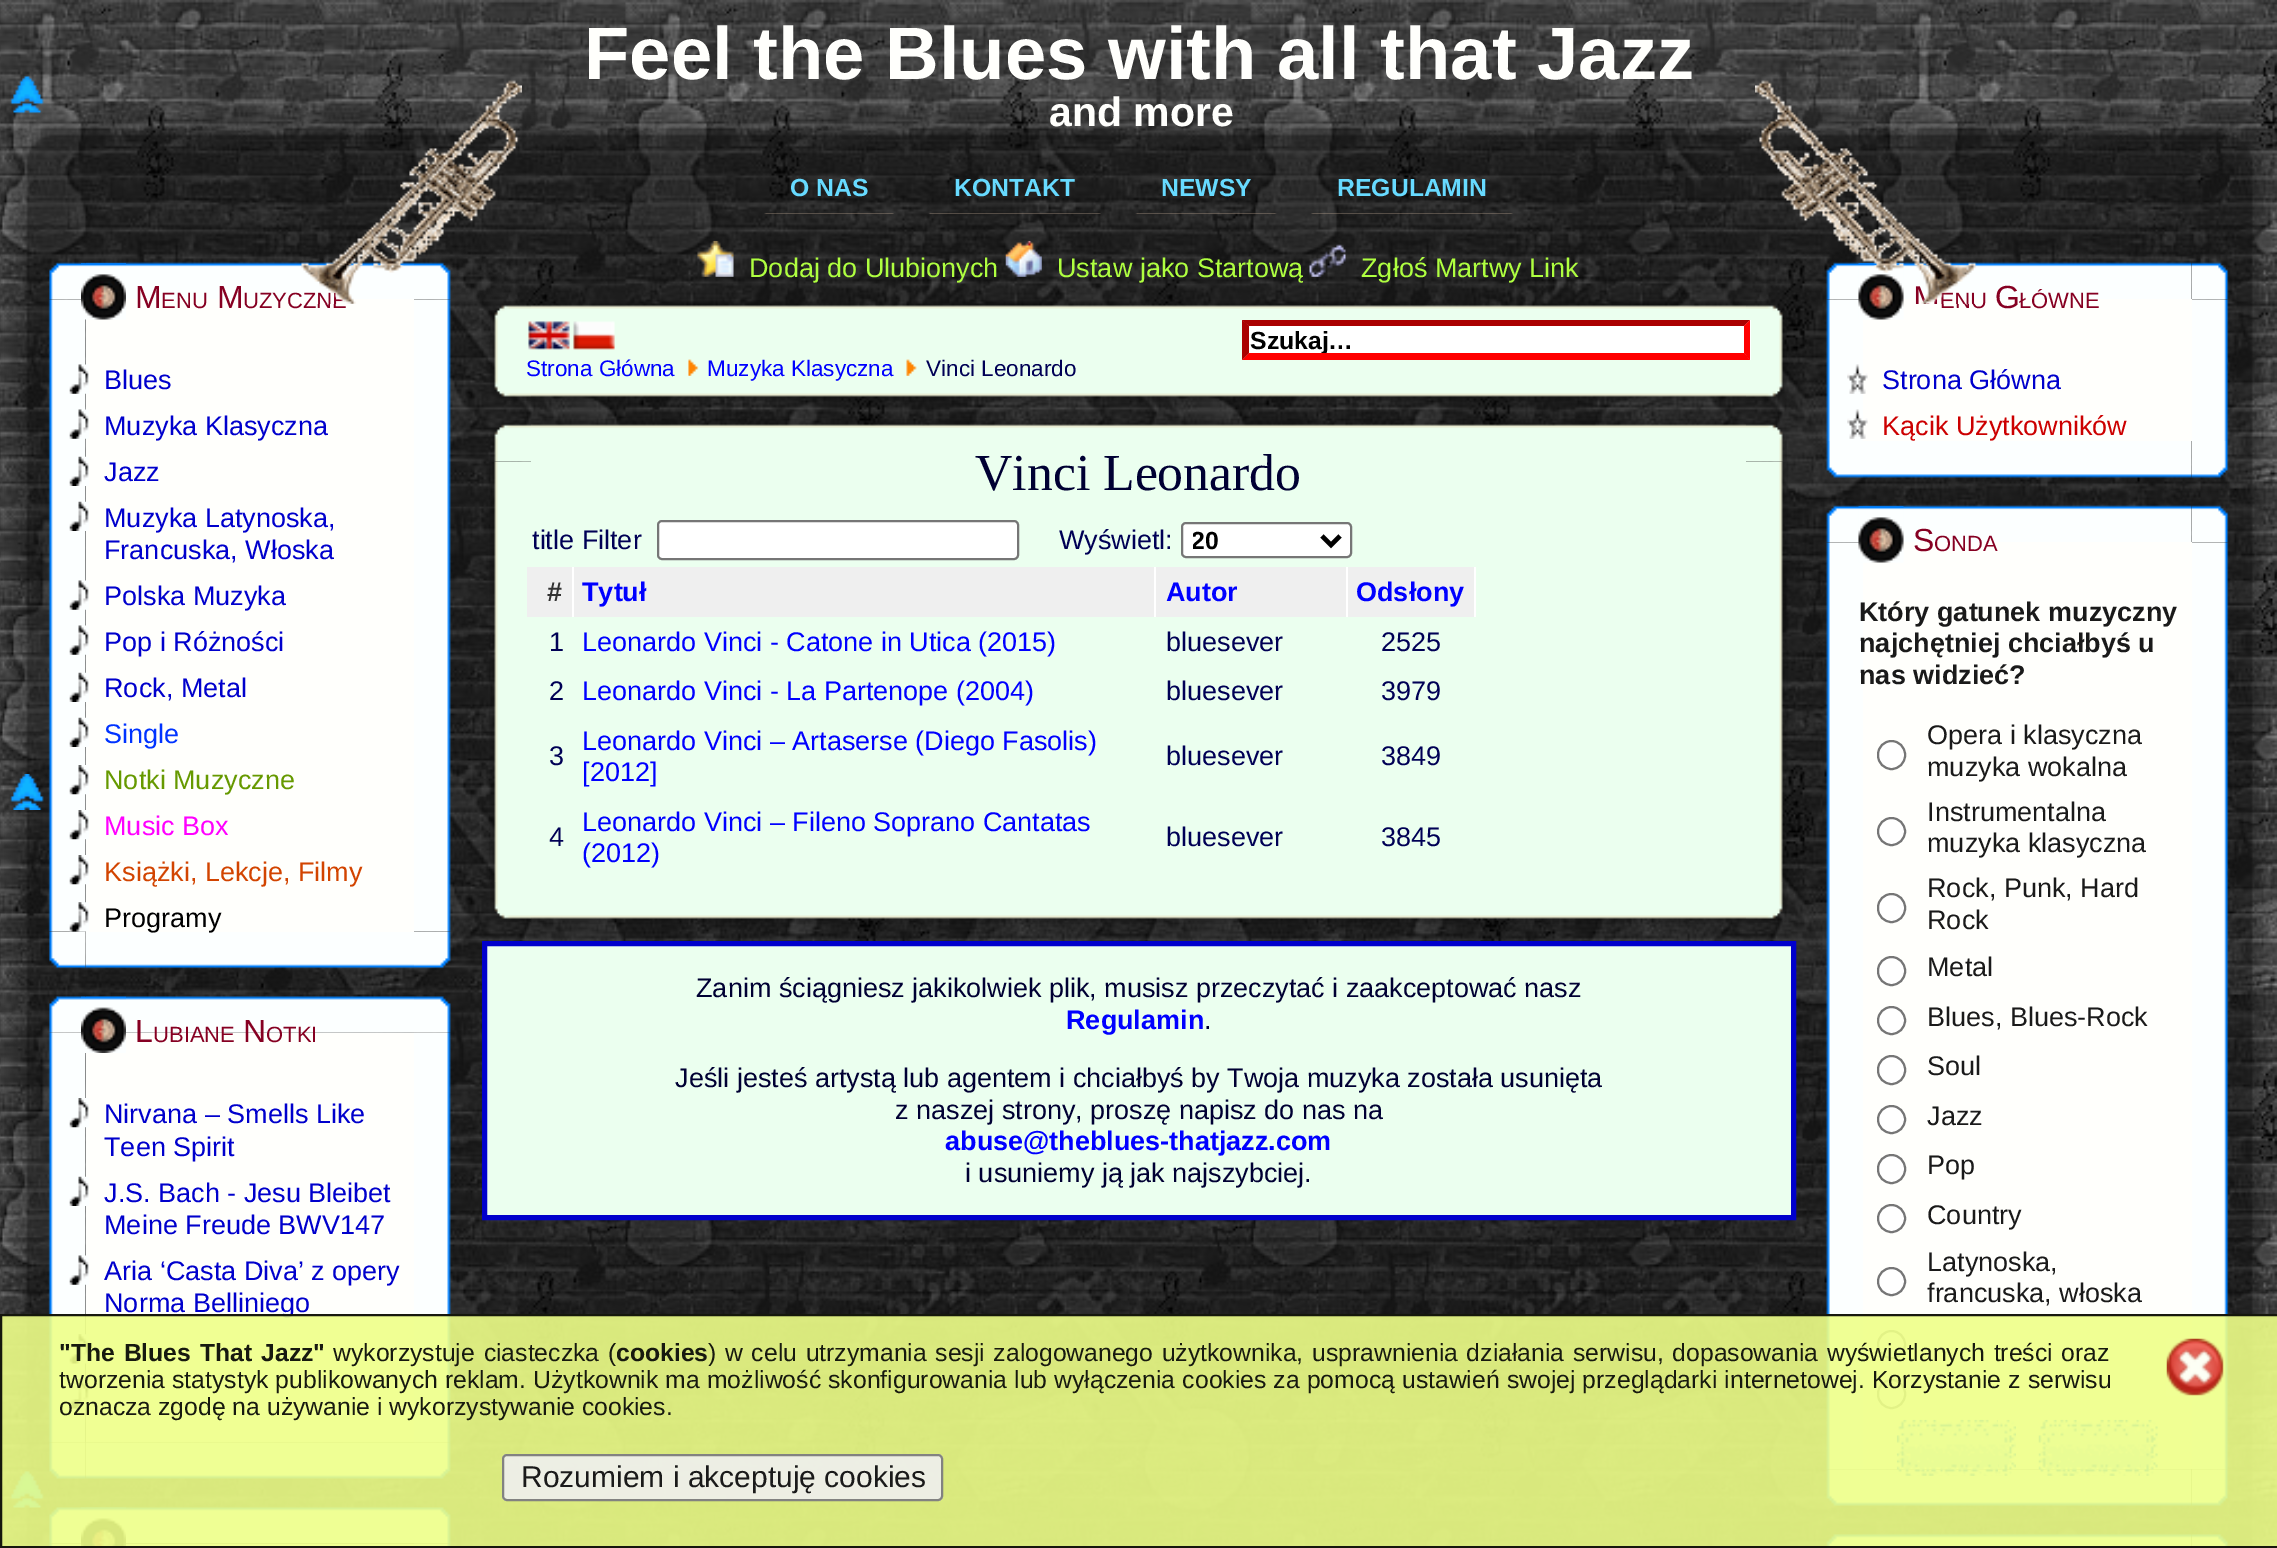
%!PS-Adobe-3.0
%%BoundingBox: 0 0 2277 1548
%%LanguageLevel: 3
%%Pages: 1
%%EndComments
%%BeginProlog
/setink { 3 { 255 div 3 1 roll } repeat setrgbcolor } def
/usefont { [ exch dup neg 0 0 3 -1 roll 0 0 ] selectfont } def
/drawtext { setink usefont moveto show } def
/fillbox { setink rectfill } def
/setalpha { dup .setfillconstantalpha .setstrokeconstantalpha } def
/disc { newpath 0 360 arc closepath } def
/rrect { 5 dict begin { /r /h /w /y /x } { exch def } forall
  x r add y moveto x w add y 2 copy h add r arct x w add y h add x 1 index r arct
  x y h add x y r arct x y 2 copy exch w add exch r arct closepath end } def
/drawimage { 5 dict begin { /h /w /y /x /name } { exch def } forall
  gsave x y translate w h scale
  w h 8 [w 0 0 h 0 0] name (r) file false 3 colorimage grestore end } def
%%EndProlog
%%BeginSetup
<< /PageSize [2277 1548] /PageUsesTransparency true >> setpagedevice
%%EndSetup
%%Page: 1 1
0 .pushpdf14devicefilter
0 1548 translate 1 -1 scale
4 setmiterlimit
0 0 2277 1548 255 255 255 fillbox
(assets/img1.rgb) 0 0 2277 1548 drawimage
(assets/img2.rgb) 0 0 2272 507 drawimage
(Feel the Blues with all that Jazz) 584 79 /LiberationSans-Bold 74.25 255 255 252 drawtext
(assets/img4.rgb) 135 112 2007 131 drawimage
(and more) 1049 126 /LiberationSans-Bold 41 255 255 252 drawtext
(assets/img3.rgb) 4 112 131 131 drawimage
(assets/img5.rgb) 2142 114 135 129 drawimage
(O NAS) 790 196 /LiberationSans-Bold 24.75 103 218 255 drawtext
(assets/img6.rgb) 764 213 121 1 drawimage
(assets/img7.rgb) 884 213 10 1 drawimage
(KONTAKT) 954 196 /LiberationSans-Bold 24.75 103 218 255 drawtext
(assets/img8.rgb) 928 213 164 1 drawimage
(assets/img9.rgb) 1091 213 10 1 drawimage
(NEWSY) 1161 196 /LiberationSans-Bold 24.75 103 218 255 drawtext
(assets/img10.rgb) 1135 213 132 1 drawimage
(assets/img11.rgb) 1266 213 11 1 drawimage
(REGULAMIN) 1337 196 /LiberationSans-Bold 24.75 103 218 255 drawtext
(assets/img12.rgb) 1311 213 192 1 drawimage
(assets/img13.rgb) 1503 213 10 1 drawimage
(assets/img107.rgb) 4 243 131 1305 drawimage
(assets/img14.rgb) 49 262 37 38 drawimage
0.5 setalpha
135 243 2007 1305 0 0 0 fillbox
1 setalpha
(assets/img15.rgb) 85 262 329 37 drawimage
(assets/img16.rgb) 414 262 37 38 drawimage
(assets/img31.rgb) 49 931 37 38 drawimage
(assets/img32.rgb) 85 931 329 38 drawimage
(assets/img17.rgb) 48 299 38 633 drawimage
86 299 328 633 255 255 252 fillbox
(assets/img18.rgb) 81 263 45 57 drawimage
(M) 135 308 /LiberationSans-Regular 32 134 0 34 drawtext
(ENU) 161 308 /LiberationSans-Regular 22 134 0 34 drawtext
(M) 217 308 /LiberationSans-Regular 32 134 0 34 drawtext
(UZYCZNE) 243 308 /LiberationSans-Regular 22 134 0 34 drawtext
(assets/img19.rgb) 69 364 20 30 drawimage
(Blues) 104 389 /LiberationSans-Regular 27 0 0 204 drawtext
(assets/img20.rgb) 69 409 20 30 drawimage
(Muzyka Klasyczna) 104 435 /LiberationSans-Regular 27 0 0 204 drawtext
(assets/img21.rgb) 69 456 20 30 drawimage
(Jazz) 104 481 /LiberationSans-Regular 27 0 0 204 drawtext
(assets/img22.rgb) 69 501 20 30 drawimage
(Muzyka Latynoska,) 104 527 /LiberationSans-Regular 27 0 0 204 drawtext
(Francuska, Włoska) 104 559 /LiberationSans-Regular 27 0 0 204 drawtext
(assets/img23.rgb) 69 580 20 30 drawimage
(Polska Muzyka) 104 605 /LiberationSans-Regular 27 0 0 204 drawtext
(assets/img24.rgb) 69 625 20 30 drawimage
(Pop i Różności) 104 651 /LiberationSans-Regular 27 0 0 204 drawtext
(assets/img21.rgb) 69 672 20 30 drawimage
(Rock, Metal) 104 697 /LiberationSans-Regular 27 0 0 204 drawtext
(assets/img25.rgb) 69 717 20 30 drawimage
(Single) 104 743 /LiberationSans-Regular 27 0 51 255 drawtext
(assets/img26.rgb) 69 765 20 30 drawimage
(Notki Muzyczne) 104 789 /LiberationSans-Regular 27 102 153 0 drawtext
(assets/img27.rgb) 69 810 20 30 drawimage
(Music Box) 104 835 /LiberationSans-Regular 27 255 0 255 drawtext
(assets/img28.rgb) 69 855 20 30 drawimage
(Książki, Lekcje, Filmy) 104 881 /LiberationSans-Regular 27 210 68 0 drawtext
(assets/img29.rgb) 69 902 20 30 drawimage
(Programy) 104 927 /LiberationSans-Regular 27 0 0 0 drawtext
(assets/img33.rgb) 414 931 37 38 drawimage
(assets/img30.rgb) 414 299 37 633 drawimage
(assets/img34.rgb) 49 996 37 37 drawimage
(assets/img35.rgb) 85 996 329 37 drawimage
(assets/img36.rgb) 414 996 37 37 drawimage
(assets/img45.rgb) 49 1442 37 37 drawimage
(assets/img46.rgb) 85 1442 329 37 drawimage
(assets/img37.rgb) 48 1033 38 410 drawimage
86 1033 328 409 255 255 252 fillbox
(assets/img38.rgb) 81 996 45 57 drawimage
(L) 135 1042 /LiberationSans-Regular 32 134 0 34 drawtext
(UBIANE) 153 1042 /LiberationSans-Regular 22 134 0 34 drawtext
(N) 243 1042 /LiberationSans-Regular 32 134 0 34 drawtext
(OTKI) 266 1042 /LiberationSans-Regular 22 134 0 34 drawtext
(assets/img39.rgb) 69 1098 20 30 drawimage
(Nirvana – Smells Like) 104 1123 /LiberationSans-Regular 27 0 0 204 drawtext
(Teen Spirit) 104 1156 /LiberationSans-Regular 27 0 0 204 drawtext
(assets/img40.rgb) 69 1176 20 30 drawimage
(J.S. Bach - Jesu Bleibet) 104 1202 /LiberationSans-Regular 27 0 0 204 drawtext
(Meine Freude BWV147) 104 1234 /LiberationSans-Regular 27 0 0 204 drawtext
(assets/img41.rgb) 69 1255 20 30 drawimage
(Aria ‘Casta Diva’ z opery) 104 1280 /LiberationSans-Regular 27 0 0 204 drawtext
(Norma Belliniego) 104 1312 /LiberationSans-Regular 27 0 0 204 drawtext
(assets/img42.rgb) 69 1334 20 30 drawimage
(assets/img43.rgb) 69 1379 20 30 drawimage
(assets/img47.rgb) 414 1442 37 37 drawimage
(assets/img44.rgb) 414 1032 37 411 drawimage
(assets/img48.rgb) 49 1507 37 37 drawimage
(assets/img49.rgb) 85 1506 329 38 drawimage
(assets/img50.rgb) 81 1507 45 41 drawimage
(assets/img51.rgb) 414 1507 37 37 drawimage
(assets/img52.rgb) 48 1543 33 5 drawimage
126 1544 288 4 255 255 252 fillbox
(assets/img53.rgb) 414 1543 37 5 drawimage
(assets/img54.rgb) 10 76 34 38 drawimage
(assets/img55.rgb) 697 240 37 37 drawimage
(Dodaj do Ulubionych) 749 277 /LiberationSans-Regular 27 175 255 64 drawtext
(assets/img56.rgb) 1005 240 37 37 drawimage
(Ustaw jako Startową) 1057 277 /LiberationSans-Regular 27 175 255 64 drawtext
(assets/img57.rgb) 1309 244 37 33 drawimage
(Zgłoś Martwy Link) 1361 277 /LiberationSans-Regular 27 175 255 64 drawtext
(assets/img58.rgb) 10 774 34 36 drawimage
(assets/img59.rgb) 10 1471 34 37 drawimage
(assets/img60.rgb) 490 301 41 41 drawimage
(assets/img61.rgb) 531 300 1215 42 drawimage
(assets/img62.rgb) 1746 301 41 41 drawimage
(assets/img63.rgb) 489 342 42 18 drawimage
531 342 711 18 235 255 239 fillbox
(assets/img64.rgb) 528 321 42 29 drawimage
(assets/img65.rgb) 573 321 42 29 drawimage
1242 320 509 40 255 255 255 fillbox
170 0 0 setink
1242 320 moveto 1750 320 lineto 1744 326 lineto 1249 326 lineto closepath fill
255 0 0 setink
1750 320 moveto 1750 360 lineto 1744 353 lineto 1744 326 lineto closepath fill
1750 360 moveto 1242 360 lineto 1249 353 lineto 1744 353 lineto closepath fill
170 0 0 setink
1242 360 moveto 1242 320 lineto 1249 326 lineto 1249 353 lineto closepath fill
gsave
1249 326 495 27 rectclip
(Szukaj…) 1250 349 /LiberationSans-Bold 24.75 0 0 0 drawtext
grestore
(assets/img69.rgb) 490 360 41 41 drawimage
(assets/img70.rgb) 531 360 1215 42 drawimage
(Strona Główna) 526 376 /LiberationSans-Regular 22.5 0 0 255 drawtext
(assets/img66.rgb) 688 359 11 17 drawimage
(Muzyka Klasyczna) 707 376 /LiberationSans-Regular 22.5 0 0 255 drawtext
(assets/img67.rgb) 906 359 11 17 drawimage
(Vinci Leonardo) 926 376 /LiberationSans-Regular 22.5 0 0 85 drawtext
(assets/img68.rgb) 1751 342 36 18 drawimage
(assets/img71.rgb) 1746 360 42 41 drawimage
(assets/img72.rgb) 490 420 41 42 drawimage
(assets/img73.rgb) 531 419 1215 42 drawimage
(assets/img74.rgb) 1746 420 41 42 drawimage
(assets/img75.rgb) 489 461 42 421 drawimage
531 461 1215 421 235 255 239 fillbox
(Vinci Leonardo) 975 490 /LiberationSerif-Regular 51.75 0 0 51 drawtext
(title Filter) 532 549 /LiberationSans-Regular 27 0 0 85 drawtext
255 255 255 setink
658 521 360 38 4 rrect gsave fill grestore
118 118 118 setink
2 setlinewidth
stroke
(Wyświetl:) 1059 549 /LiberationSans-Regular 27 0 0 85 drawtext
255 255 255 setink
1182 523 169 34 4 rrect gsave fill grestore
118 118 118 setink
stroke
0 0 0 setink
4.5 setlinewidth
1322 536 moveto 1331 545 lineto 1340 536 lineto stroke
gsave
1193 524 121 32 rectclip
(20) 1191 549 /LiberationSans-Bold 24.75 0 0 0 drawtext
grestore
527 567 45 50 239 239 239 fillbox
572 567 2 50 255 255 255 fillbox
(#) 547 601 /LiberationSans-Bold 27 51 51 51 drawtext
574 567 772 50 239 239 239 fillbox
1154 567 2 50 255 255 255 fillbox
(Tytuł) 582 601 /LiberationSans-Bold 27 0 0 255 drawtext
1346 567 2 50 255 255 255 fillbox
(Autor) 1166 601 /LiberationSans-Bold 27 0 0 255 drawtext
1348 567 126 50 239 239 239 fillbox
1474 567 2 50 255 255 255 fillbox
(Odsłony) 1356 601 /LiberationSans-Bold 27 0 0 255 drawtext
(1) 549 651 /LiberationSans-Regular 27 0 0 85 drawtext
(Leonardo Vinci - Catone in Utica \(2015\)) 582 651 /LiberationSans-Regular 27 0 0 255 drawtext
(bluesever) 1166 651 /LiberationSans-Regular 27 0 0 85 drawtext
(2525) 1381 651 /LiberationSans-Regular 27 0 0 85 drawtext
(2) 549 700 /LiberationSans-Regular 27 0 0 85 drawtext
(Leonardo Vinci - La Partenope \(2004\)) 582 700 /LiberationSans-Regular 27 0 0 255 drawtext
(bluesever) 1166 700 /LiberationSans-Regular 27 0 0 85 drawtext
(3979) 1381 700 /LiberationSans-Regular 27 0 0 85 drawtext
(3) 549 765 /LiberationSans-Regular 27 0 0 85 drawtext
(Leonardo Vinci – Artaserse \(Diego Fasolis\)) 582 750 /LiberationSans-Regular 27 0 0 255 drawtext
([2012]) 582 781 /LiberationSans-Regular 27 0 0 255 drawtext
(bluesever) 1166 765 /LiberationSans-Regular 27 0 0 85 drawtext
(3849) 1381 765 /LiberationSans-Regular 27 0 0 85 drawtext
(4) 549 846 /LiberationSans-Regular 27 0 0 85 drawtext
(Leonardo Vinci – Fileno Soprano Cantatas) 582 831 /LiberationSans-Regular 27 0 0 255 drawtext
(\(2012\)) 582 862 /LiberationSans-Regular 27 0 0 255 drawtext
(bluesever) 1166 846 /LiberationSans-Regular 27 0 0 85 drawtext
(3845) 1381 846 /LiberationSans-Regular 27 0 0 85 drawtext
(assets/img76.rgb) 1746 461 42 421 drawimage
(assets/img77.rgb) 490 882 41 40 drawimage
(assets/img78.rgb) 531 882 1215 42 drawimage
(assets/img79.rgb) 1746 882 42 41 drawimage
235 255 239 setink
484.5 943.5 moveto 1793.5 943.5 lineto 1793.5 1217.5 lineto 484.5 1217.5 lineto closepath gsave fill grestore
0 0 204 setink
5 setlinewidth
stroke
(Zanim ściągniesz jakikolwiek plik, musisz przeczytać i zaakceptować nasz) 696 997 /LiberationSans-Regular 27 0 0 51 drawtext
(Regulamin) 1066 1029 /LiberationSans-Bold 27 0 0 255 drawtext
(.) 1204 1029 /LiberationSans-Regular 27 0 0 51 drawtext
(Jeśli jesteś artystą lub agentem i chciałbyś by Twoja muzyka została usunięta) 675 1087 /LiberationSans-Regular 27 0 0 51 drawtext
(z naszej strony, proszę napisz do nas na) 895 1119 /LiberationSans-Regular 27 0 0 51 drawtext
(abuse@theblues-thatjazz.com) 945 1150 /LiberationSans-Bold 27 0 0 255 drawtext
(i usuniemy ją jak najszybciej.) 965 1182 /LiberationSans-Regular 27 0 0 51 drawtext
(assets/img80.rgb) 1826 262 37 38 drawimage
(assets/img108.rgb) 2142 243 135 1305 drawimage
(assets/img82.rgb) 2191 262 38 38 drawimage
(assets/img81.rgb) 1863 262 329 37 drawimage
(assets/img83.rgb) 1826 299 37 142 drawimage
1863 299 329 142 255 255 252 fillbox
(assets/img84.rgb) 1858 263 46 57 drawimage
(ENU) 1940 308 /LiberationSans-Regular 22 134 0 34 drawtext
(G) 1995 308 /LiberationSans-Regular 32 134 0 34 drawtext
(ŁÓWNE) 2019 308 /LiberationSans-Regular 22 134 0 34 drawtext
(assets/img85.rgb) 1847 364 21 30 drawimage
(Strona Główna) 1882 389 /LiberationSans-Regular 27 0 0 204 drawtext
(assets/img85.rgb) 1847 409 21 30 drawimage
(Kącik Użytkowników) 1882 435 /LiberationSans-Regular 27 204 0 0 drawtext
(assets/img86.rgb) 2192 299 37 142 drawimage
(assets/img87.rgb) 1826 441 37 37 drawimage
(assets/img89.rgb) 2191 441 38 37 drawimage
(assets/img88.rgb) 1863 441 329 37 drawimage
(assets/img90.rgb) 1826 505 37 38 drawimage
(assets/img92.rgb) 2191 505 38 38 drawimage
(assets/img91.rgb) 1863 505 329 37 drawimage
(assets/img100.rgb) 1826 1469 37 37 drawimage
(assets/img93.rgb) 1826 542 37 928 drawimage
(assets/img102.rgb) 2191 1469 38 37 drawimage
(assets/img101.rgb) 1863 1469 329 37 drawimage
(assets/img99.rgb) 2191 542 38 928 drawimage
1863 542 329 927 255 255 252 fillbox
(assets/img94.rgb) 1858 506 46 57 drawimage
(S) 1913 551 /LiberationSans-Regular 32 134 0 34 drawtext
(ONDA) 1934 551 /LiberationSans-Regular 22 134 0 34 drawtext
(Który gatunek muzyczny) 1859 621 /LiberationSans-Bold 27 26 26 26 drawtext
(najchętniej chciałbyś u) 1859 652 /LiberationSans-Bold 27 26 26 26 drawtext
(nas widzieć?) 1859 684 /LiberationSans-Bold 27 26 26 26 drawtext
255 255 255 setink
1878 741 27 28 13.5 rrect gsave fill grestore
118 118 118 setink
2 setlinewidth
stroke
(Opera i klasyczna) 1927 744 /LiberationSans-Regular 27 26 26 26 drawtext
(muzyka wokalna) 1927 776 /LiberationSans-Regular 27 26 26 26 drawtext
255 255 255 setink
1891.5 831.5 13.5 disc gsave fill grestore
118 118 118 setink
stroke
(Instrumentalna) 1927 821 /LiberationSans-Regular 27 26 26 26 drawtext
(muzyka klasyczna) 1927 852 /LiberationSans-Regular 27 26 26 26 drawtext
255 255 255 setink
1878 894 27 28 13.5 rrect gsave fill grestore
118 118 118 setink
stroke
(Rock, Punk, Hard) 1927 897 /LiberationSans-Regular 27 26 26 26 drawtext
(Rock) 1927 929 /LiberationSans-Regular 27 26 26 26 drawtext
255 255 255 setink
1878 957 27 28 13.5 rrect gsave fill grestore
118 118 118 setink
stroke
(Metal) 1927 976 /LiberationSans-Regular 27 26 26 26 drawtext
255 255 255 setink
1891.5 1020.5 13.5 disc gsave fill grestore
118 118 118 setink
stroke
(Blues, Blues-Rock) 1927 1026 /LiberationSans-Regular 27 26 26 26 drawtext
255 255 255 setink
1878 1056 27 28 13.5 rrect gsave fill grestore
118 118 118 setink
stroke
(Soul) 1927 1075 /LiberationSans-Regular 27 26 26 26 drawtext
255 255 255 setink
1891.5 1119.5 13.5 disc gsave fill grestore
118 118 118 setink
stroke
(Jazz) 1927 1125 /LiberationSans-Regular 27 26 26 26 drawtext
255 255 255 setink
1878 1155 27 28 13.5 rrect gsave fill grestore
118 118 118 setink
stroke
(Pop) 1927 1174 /LiberationSans-Regular 27 26 26 26 drawtext
255 255 255 setink
1891.5 1218.5 13.5 disc gsave fill grestore
118 118 118 setink
stroke
(Country) 1927 1224 /LiberationSans-Regular 27 26 26 26 drawtext
255 255 255 setink
1891.5 1281.5 13.5 disc gsave fill grestore
118 118 118 setink
stroke
(Latynoska,) 1927 1271 /LiberationSans-Regular 27 26 26 26 drawtext
(francuska, włoska) 1927 1302 /LiberationSans-Regular 27 26 26 26 drawtext
255 255 255 setink
1891.5 1344.5 13.5 disc gsave fill grestore
118 118 118 setink
stroke
255 255 255 setink
1878 1380 27 28 13.5 rrect gsave fill grestore
118 118 118 setink
stroke
(assets/img95.rgb) 1896 1419 102 57 drawimage
(assets/img96.rgb) 1998 1419 18 57 drawimage
(assets/img97.rgb) 2038 1419 102 57 drawimage
(assets/img98.rgb) 2139 1419 19 57 drawimage
(assets/img103.rgb) 1826 1534 37 14 drawimage
(assets/img105.rgb) 2191 1534 38 14 drawimage
(assets/img104.rgb) 1863 1533 329 15 drawimage
0.9 setalpha
0 1314 2277 234 238 255 136 fillbox
0 0 0 setink
1 1315 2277 232 rectstroke
/LiberationSans-Bold 24.75 usefont
1 setalpha
23 25 15 setink
59 1361 moveto 2 0 32 ("The Blues That Jazz") widthshow
/LiberationSans-Regular 24.75 usefont
333 1361 moveto 2 0 32 (wykorzystuje ciasteczka \() widthshow
(cookies) 616 1361 /LiberationSans-Bold 24.75 23 25 15 drawtext
/LiberationSans-Regular 24.75 usefont
708 1361 moveto 1.8 0 32 (\) w celu utrzymania sesji zalogowanego użytkownika, usprawnienia działania serwisu, dopasowania wyświetlanych treści oraz) widthshow
59 1388 moveto 0.25 0 32 (tworzenia statystyk publikowanych reklam. Użytkownik ma możliwość skonfigurowania lub wyłączenia cookies za pomocą ustawień swojej przeglądarki internetowej. Korzystanie z serwisu) widthshow
(oznacza zgodę na używanie i wykorzystywanie cookies.) 59 1415 /LiberationSans-Regular 24.75 23 25 15 drawtext
0.9 setalpha
239 239 239 setink
502 1454 441 47 5 rrect fill
118 118 118 setink
503 1455 439 45 4 rrect stroke
1 setalpha
(Rozumiem i akceptuję cookies) 521 1487 /LiberationSans-Regular 30 26 26 26 drawtext
(assets/img106.rgb) 2166 1338 58 58 drawimage
(assets/img109.rgb) 301 80 221 224 drawimage
(assets/img110.rgb) 1755 80 222 224 drawimage
.poppdf14devicefilter showpage
%%EOF
